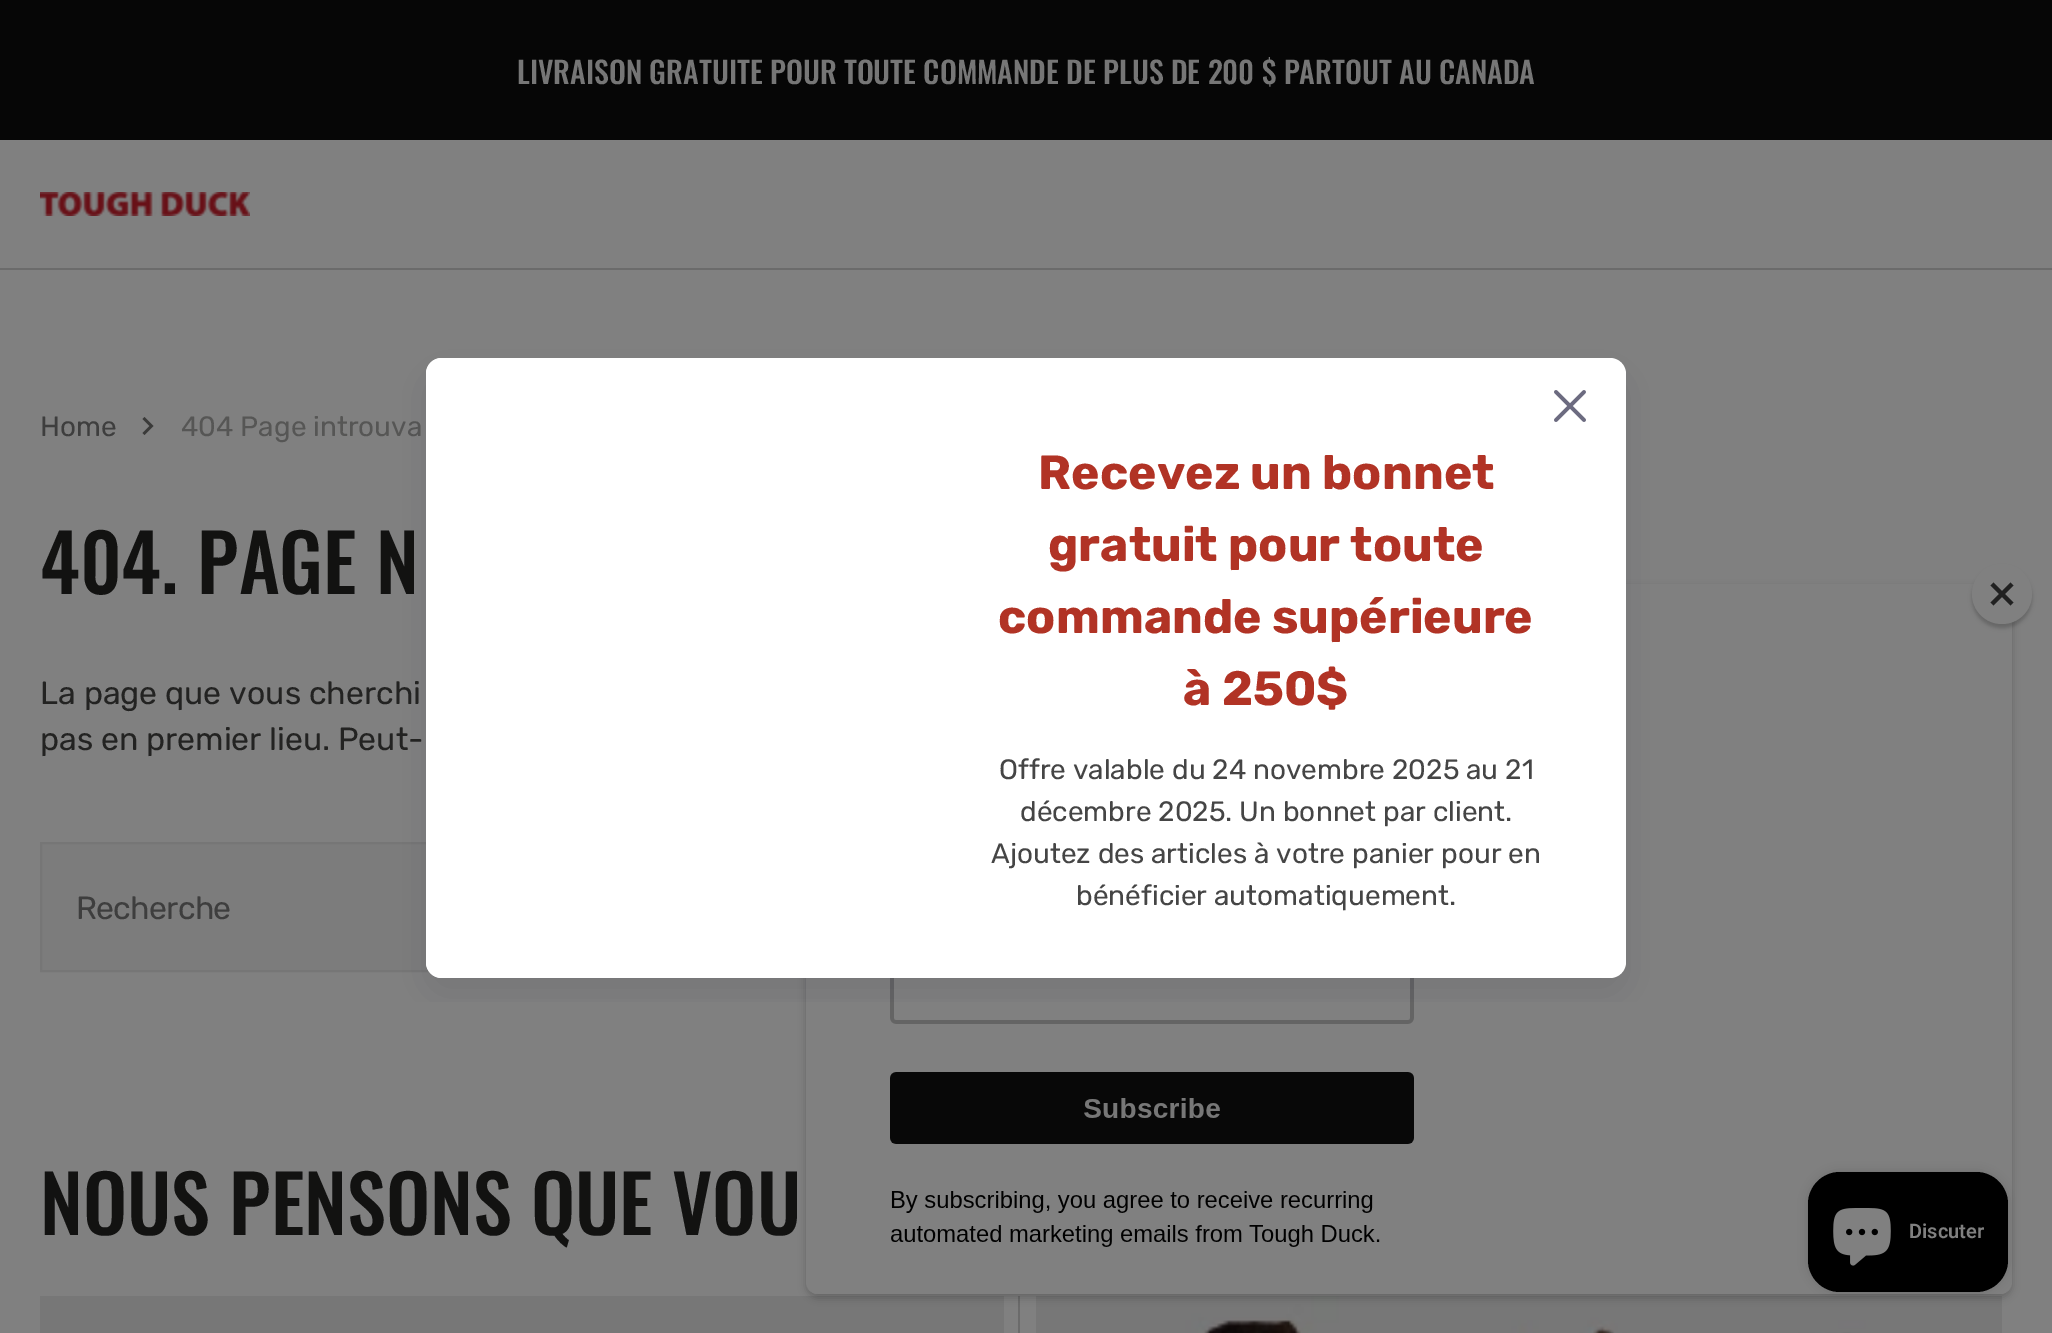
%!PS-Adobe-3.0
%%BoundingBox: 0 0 2052 1333
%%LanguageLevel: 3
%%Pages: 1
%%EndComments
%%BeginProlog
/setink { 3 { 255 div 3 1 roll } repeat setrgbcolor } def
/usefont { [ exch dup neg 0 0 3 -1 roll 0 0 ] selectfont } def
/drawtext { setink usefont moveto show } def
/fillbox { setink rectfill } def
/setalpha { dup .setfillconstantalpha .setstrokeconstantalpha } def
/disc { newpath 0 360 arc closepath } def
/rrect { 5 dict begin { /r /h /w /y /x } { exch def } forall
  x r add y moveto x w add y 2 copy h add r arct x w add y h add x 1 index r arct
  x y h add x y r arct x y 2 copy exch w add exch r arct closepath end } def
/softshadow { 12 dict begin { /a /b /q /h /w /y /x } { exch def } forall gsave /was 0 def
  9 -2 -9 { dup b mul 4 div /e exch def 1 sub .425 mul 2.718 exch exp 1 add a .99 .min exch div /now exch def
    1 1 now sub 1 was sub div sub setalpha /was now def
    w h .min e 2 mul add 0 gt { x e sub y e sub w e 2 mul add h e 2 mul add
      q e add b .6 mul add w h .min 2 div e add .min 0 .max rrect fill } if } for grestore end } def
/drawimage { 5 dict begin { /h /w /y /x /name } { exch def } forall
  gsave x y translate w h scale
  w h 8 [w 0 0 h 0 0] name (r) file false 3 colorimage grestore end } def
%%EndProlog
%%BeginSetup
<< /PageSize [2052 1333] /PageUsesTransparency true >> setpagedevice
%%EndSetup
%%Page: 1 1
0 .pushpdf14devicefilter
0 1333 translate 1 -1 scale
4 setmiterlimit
0 0 2052 1333 128 128 128 fillbox
0 0 2052 140 6 6 6 fillbox
(LIVRAISON GRATUITE POUR TOUTE COMMANDE DE PLUS DE 200 $ PARTOUT AU CANADA) 517 84 /Oswald-Medium 30 118 118 118 drawtext
0 268 2052 2 107 107 107 fillbox
(assets/img1.rgb) 40 192 210 24 drawimage
(Home) 40 436 /Rubik-Regular 28 62 62 62 drawtext
58 58 57 setink
2.6 setlinewidth
2 setlinecap
144.5 419 moveto 151.5 426 lineto 144.5 433 lineto stroke
(404 Page introuva) 181 436 /Rubik-Regular 28 86 86 85 drawtext
(404. PAGE N) 40 594 /Oswald-Medium 78.5 18 18 17 drawtext
(La page que vous cherchi) 40 704 /Rubik-Regular 32 35 35 34 drawtext
(pas en premier lieu. Peut-) 40 750 /Rubik-Regular 32 35 35 34 drawtext
42 844 387 126 124 124 124 fillbox
118 118 118 setink
2 setlinewidth
0 setlinecap
41 843 1130 128 rectstroke
62 62 62 setink
76 919 moveto -0.75 0 (Recherche) ashow
(NOUS PENSONS QUE VOU) 40 1235 /Oswald-Medium 78.5 18 18 17 drawtext
40 1296 964 37 119 119 119 fillbox
1018 1296 2 37 107 107 107 fillbox
(assets/img2.rgb) 1036 1296 966 37 drawimage
0 0 0 setink
806 588 1206 710 12 4 0.2 softshadow
128 128 128 setink
806 584 1206 710 12 rrect fill
(assets/img4.rgb) 808 701 1202 593 drawimage
gsave
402 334 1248 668 rectclip
18 17 39 setink
426 374 1200 620 16 20 0.1 softshadow
grestore
255 255 255 setink
426 358 1200 620 16 rrect fill
442 358 moveto 906 358 lineto 906 978 lineto 442 978 lineto 433 978 426 971 426 962 curveto 426 374 lineto 426 365 433 358 442 358 curveto closepath fill
(assets/img3.rgb) 1554 390 32 32 drawimage
(Recevez un bonnet) 1038 489 /Rubik-Bold 48 177 51 37 drawtext
(gratuit pour toute) 1048 561 /Rubik-Bold 48 177 51 37 drawtext
(commande supérieure) 998 633 /Rubik-Bold 48 177 51 37 drawtext
(à 250$) 1183 705 /Rubik-Bold 48 177 51 37 drawtext
(Offre valable du 24 novembre 2025 au 21) 999 779 /Rubik-Regular 28 69 69 69 drawtext
(décembre 2025. Un bonnet par client.) 1020 821 /Rubik-Regular 28 69 69 69 drawtext
(Ajoutez des articles à votre panier pour en) 991 863 /Rubik-Regular 28 69 69 69 drawtext
(bénéficier automatiquement.) 1076 905 /Rubik-Regular 28 69 69 69 drawtext
0 0 0 setink
1972 568 60 60 30 2 0.2 softshadow
128 128 128 setink
2002 594 30 disc fill
33 33 33 setink
2010.5 582.5 moveto 2013.5 585.5 lineto 1993.5 605.5 lineto 1990.5 602.5 lineto closepath fill
1990.5 585.5 moveto 1993.5 582.5 lineto 2013.5 602.5 lineto 2010.5 605.5 lineto closepath fill
0 0 0 setink
1808 1172 200 120 32 5 0.15 softshadow
1808 1172 200 120 32 rrect fill
(assets/img5.rgb) 1833 1208 58 58 drawimage
(Discuter) 1909 1238 /Roboto-SemiBold 20 128 128 128 drawtext
.poppdf14devicefilter showpage
%%EOF
